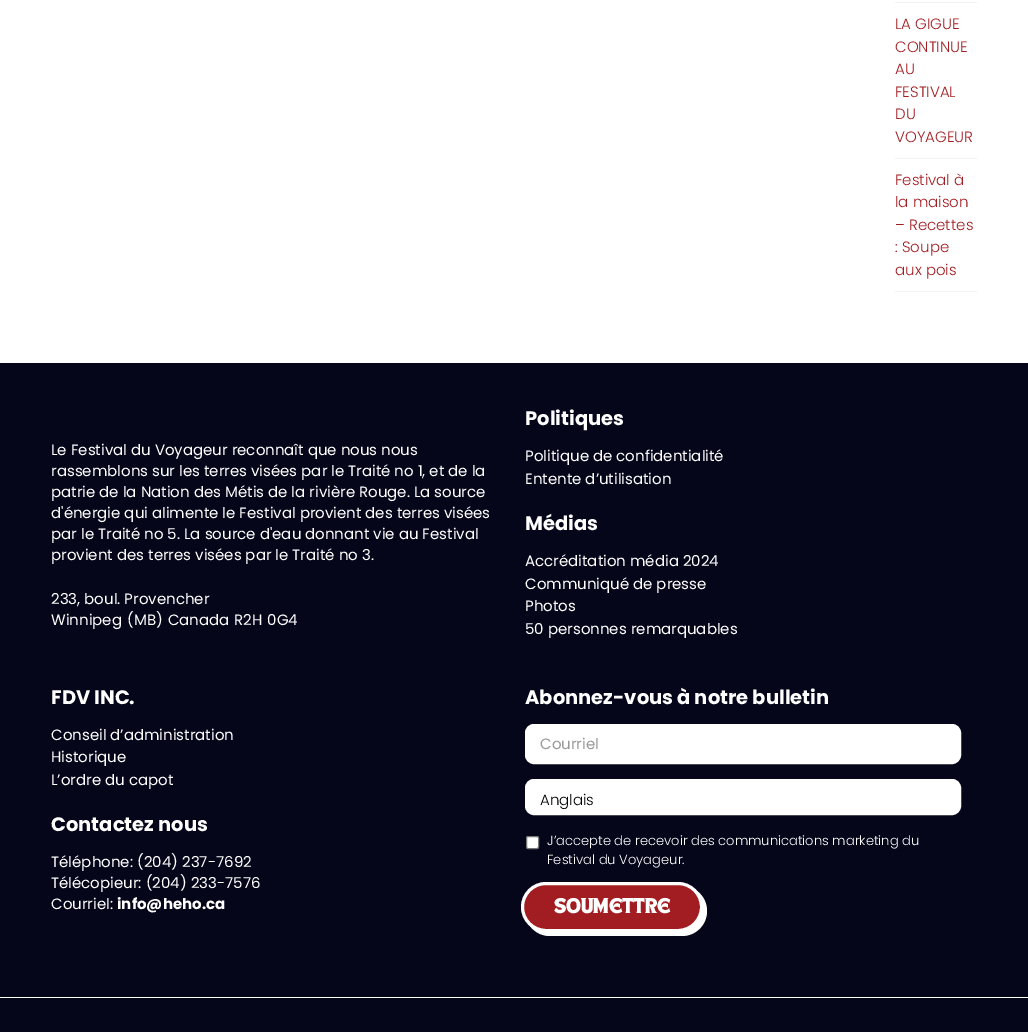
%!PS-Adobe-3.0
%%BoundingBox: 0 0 1028 1032
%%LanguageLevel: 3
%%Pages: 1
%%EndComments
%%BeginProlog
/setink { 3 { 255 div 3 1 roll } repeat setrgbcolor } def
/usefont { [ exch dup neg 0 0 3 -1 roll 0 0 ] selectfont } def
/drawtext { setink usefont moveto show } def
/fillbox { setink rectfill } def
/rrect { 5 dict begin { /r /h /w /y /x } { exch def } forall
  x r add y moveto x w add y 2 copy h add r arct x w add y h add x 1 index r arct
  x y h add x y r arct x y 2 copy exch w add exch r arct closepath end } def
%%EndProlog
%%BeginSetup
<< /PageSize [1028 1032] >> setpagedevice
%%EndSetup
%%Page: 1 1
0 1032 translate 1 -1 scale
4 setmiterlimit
0 0 1028 1032 255 255 255 fillbox
895 2 82 1 242 242 242 fillbox
895 158 82 1 242 242 242 fillbox
(LA GIGUE) 895 29 /Poppins-Light 15 162 29 33 drawtext
(CONTINUE) 895 52 /Poppins-Light 15 162 29 33 drawtext
(AU) 895 74 /Poppins-Light 15 162 29 33 drawtext
(FESTIVAL) 895 97 /Poppins-Light 15 162 29 33 drawtext
(DU) 895 119 /Poppins-Light 15 162 29 33 drawtext
(VOYAGEUR) 895 142 /Poppins-Light 15 162 29 33 drawtext
895 291 82 1 242 242 242 fillbox
(Festival à) 895 185 /Poppins-Light 15 162 29 33 drawtext
(la maison) 895 207 /Poppins-Light 15 162 29 33 drawtext
(– Recettes) 895 230 /Poppins-Light 15 162 29 33 drawtext
(: Soupe) 895 252 /Poppins-Light 15 162 29 33 drawtext
(aux pois) 895 275 /Poppins-Light 15 162 29 33 drawtext
0 363 1028 634 5 6 26 fillbox
(Le Festival du Voyageur reconnaît que nous nous) 51 455 /Poppins-Regular 15 255 255 255 drawtext
(rassemblons sur les terres visées par le Traité no 1, et de la) 51 476 /Poppins-Regular 15 255 255 255 drawtext
(patrie de la Nation des Métis de la rivière Rouge. La source) 51 497 /Poppins-Regular 15 255 255 255 drawtext
(d'énergie qui alimente le Festival provient des terres visées) 51 518 /Poppins-Regular 15 255 255 255 drawtext
(par le Traité no 5. La source d'eau donnant vie au Festival) 51 539 /Poppins-Regular 15 255 255 255 drawtext
(provient des terres visées par le Traité no 3.) 51 560 /Poppins-Regular 15 255 255 255 drawtext
(233, boul. Provencher) 51 604 /Poppins-Regular 15 255 255 255 drawtext
51 625 moveto 1 0 32 (Winnipeg \(MB\) Canada R2H 0G4) widthshow
(Politiques) 525 425 /Poppins-Bold 19.5 255 255 255 drawtext
(Politique de confidentialité) 525 461 /Poppins-Regular 15 255 255 255 drawtext
(Entente d’utilisation) 525 484 /Poppins-Regular 15 255 255 255 drawtext
(Médias) 525 530 /Poppins-Bold 19.5 255 255 255 drawtext
(Accréditation média 2024) 525 566 /Poppins-Regular 15 255 255 255 drawtext
(Communiqué de presse) 525 589 /Poppins-Regular 15 255 255 255 drawtext
(Photos) 525 611 /Poppins-Regular 15 255 255 255 drawtext
(50 personnes remarquables) 525 634 /Poppins-Regular 15 255 255 255 drawtext
(FDV INC.) 51 704 /Poppins-Bold 19.5 255 255 255 drawtext
(Conseil d’administration) 51 740 /Poppins-Regular 15 255 255 255 drawtext
(Historique) 51 762 /Poppins-Regular 15 255 255 255 drawtext
(L’ordre du capot) 51 785 /Poppins-Regular 15 255 255 255 drawtext
(Contactez nous) 51 831 /Poppins-Bold 19.5 255 255 255 drawtext
(Téléphone: \(204\) 237-7692) 51 867 /Poppins-Regular 15 255 255 255 drawtext
(Télécopieur: \(204\) 233-7576) 51 888 /Poppins-Regular 15 255 255 255 drawtext
(Courriel:) 51 909 /Poppins-Regular 15 255 255 255 drawtext
(info@heho.ca) 117 909 /Poppins-Bold 15 255 255 255 drawtext
(Abonnez-vous à notre bulletin) 525 704 /Poppins-Bold 19.5 255 255 255 drawtext
526.5 725.5 433 37 7.5 rrect gsave fill grestore
3 setlinewidth
stroke
(Courriel) 540 749 /Poppins-Regular 15 153 153 153 drawtext
255 255 255 setink
526.5 780.5 433 33 7.5 rrect gsave fill grestore
stroke
(Anglais) 540 805 /Poppins-Light 15 0 0 0 drawtext
255 255 255 setink
526.5 836.5 12 12 1.5 rrect gsave fill grestore
118 118 118 setink
1 setlinewidth
stroke
(J’accepte de recevoir des communications marketing du) 547 845 /Poppins-Light 13.1 255 255 255 drawtext
(Festival du Voyageur.) 547 864 /Poppins-Light 13.1 255 255 255 drawtext
525 886 182 50 25 rrect fill
162 29 33 setink
522.5 883.5 179 47 23.5 rrect gsave fill grestore
255 255 255 setink
3 setlinewidth
stroke
/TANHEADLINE-Bold 15 usefont
554 913 moveto 0.25 0 (SOUMETTRE) ashow
0 998 1028 34 5 6 26 fillbox
showpage
%%EOF
